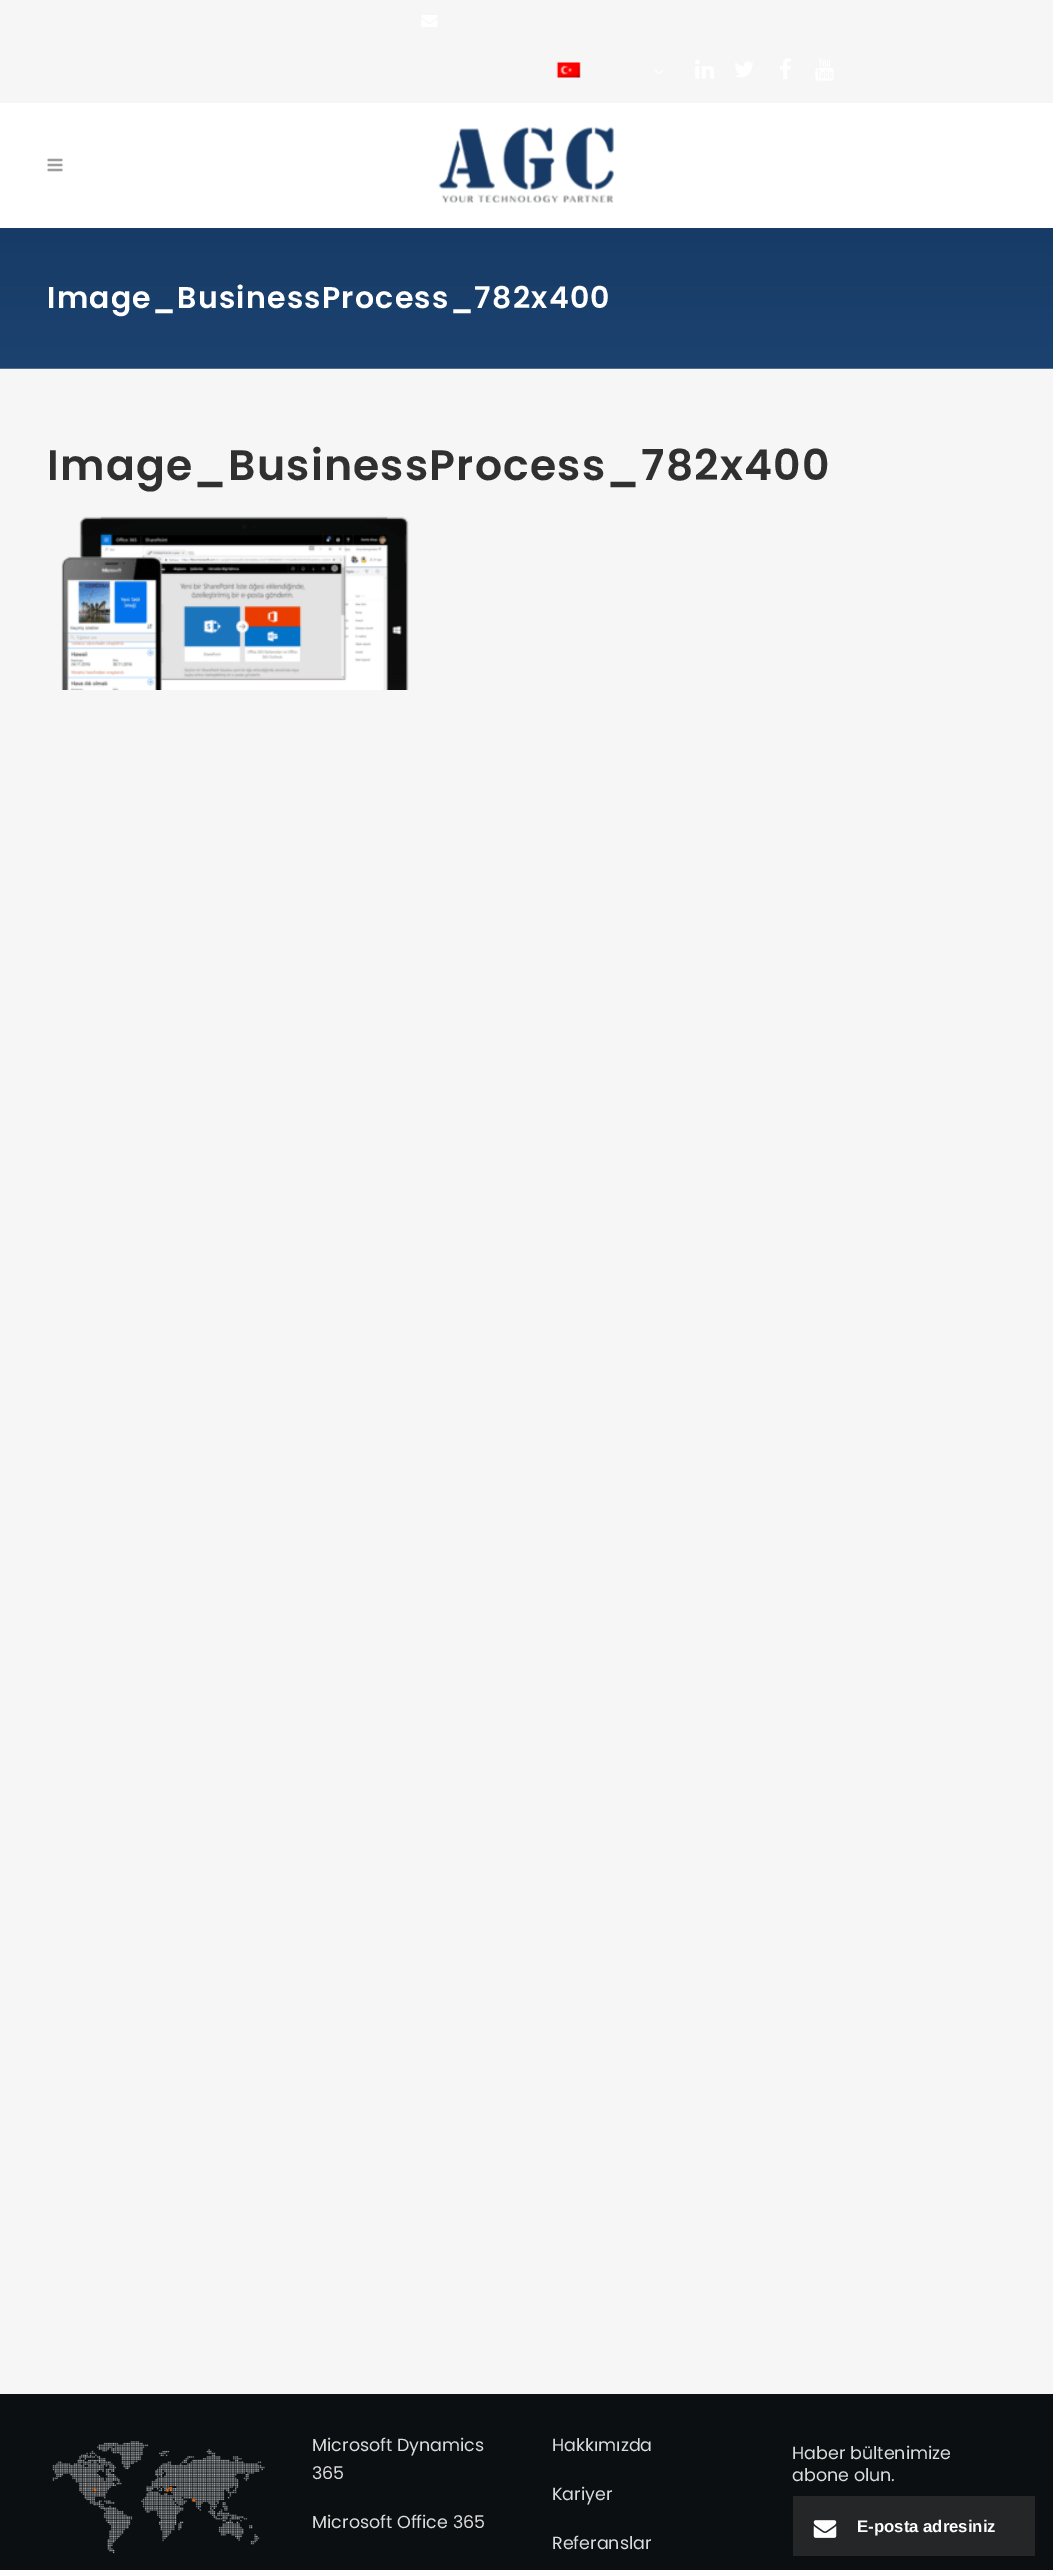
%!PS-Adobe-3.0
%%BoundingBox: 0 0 1053 2570
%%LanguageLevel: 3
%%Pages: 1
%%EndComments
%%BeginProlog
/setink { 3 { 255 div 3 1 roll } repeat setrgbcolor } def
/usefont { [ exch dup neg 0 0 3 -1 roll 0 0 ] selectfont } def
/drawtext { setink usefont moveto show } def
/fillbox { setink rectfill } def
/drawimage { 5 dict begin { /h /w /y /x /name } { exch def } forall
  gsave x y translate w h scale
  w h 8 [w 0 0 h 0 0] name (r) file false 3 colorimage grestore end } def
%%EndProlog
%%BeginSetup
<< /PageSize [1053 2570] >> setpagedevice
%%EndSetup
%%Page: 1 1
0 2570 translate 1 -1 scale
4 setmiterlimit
0 0 1053 2570 246 246 246 fillbox
(assets/img1.rgb) 421 15 17 12 drawimage
(assets/img2.rgb) 556 62 25 16 drawimage
(assets/img3.rgb) 655 70 8 4 drawimage
(assets/img4.rgb) 695 60 19 19 drawimage
(assets/img5.rgb) 735 61 18 17 drawimage
(assets/img6.rgb) 780 58 11 21 drawimage
(assets/img7.rgb) 815 58 19 23 drawimage
0 103 1053 125 255 255 255 fillbox
(assets/img8.rgb) 47 158 16 14 drawimage
(assets/img9.rgb) 438 127 176 76 drawimage
(assets/img10.rgb) 0 228 1053 141 drawimage
/Poppins-SemiBold 30 usefont
47 308 moveto 1.25 0 (Image_BusinessProcess_782x400) ashow
/Poppins-SemiBold 42.5 usefont
48 48 48 setink
47 480 moveto 1.25 0 (Image_BusinessProcess_782x400) ashow
(assets/img11.rgb) 61 516 348 174 drawimage
0 2394 1053 176 11 15 18 fillbox
(assets/img12.rgb) 52 2441 213 113 drawimage
(Microsoft Dynamics) 312 2451 /Poppins-Regular 17.5 219 219 219 drawtext
(365) 312 2479 /Poppins-Regular 17.5 219 219 219 drawtext
(Microsoft Office 365) 312 2528 /Poppins-Regular 17.5 219 219 219 drawtext
(Hakkımızda) 552 2451 /Poppins-Regular 17.5 219 219 219 drawtext
(Kariyer) 552 2500 /Poppins-Regular 17.5 219 219 219 drawtext
(Referanslar) 552 2549 /Poppins-Regular 17.5 219 219 219 drawtext
(Haber bültenimize) 792 2459 /Poppins-Regular 17.5 219 219 219 drawtext
(abone olun.) 792 2481 /Poppins-Regular 17.5 219 219 219 drawtext
793 2496 242 60 37 38 39 fillbox
(assets/img13.rgb) 813 2520 24 18 drawimage
(E-posta adresiniz) 857 2532 /LiberationSans-Bold 16.75 255 255 255 drawtext
showpage
%%EOF
